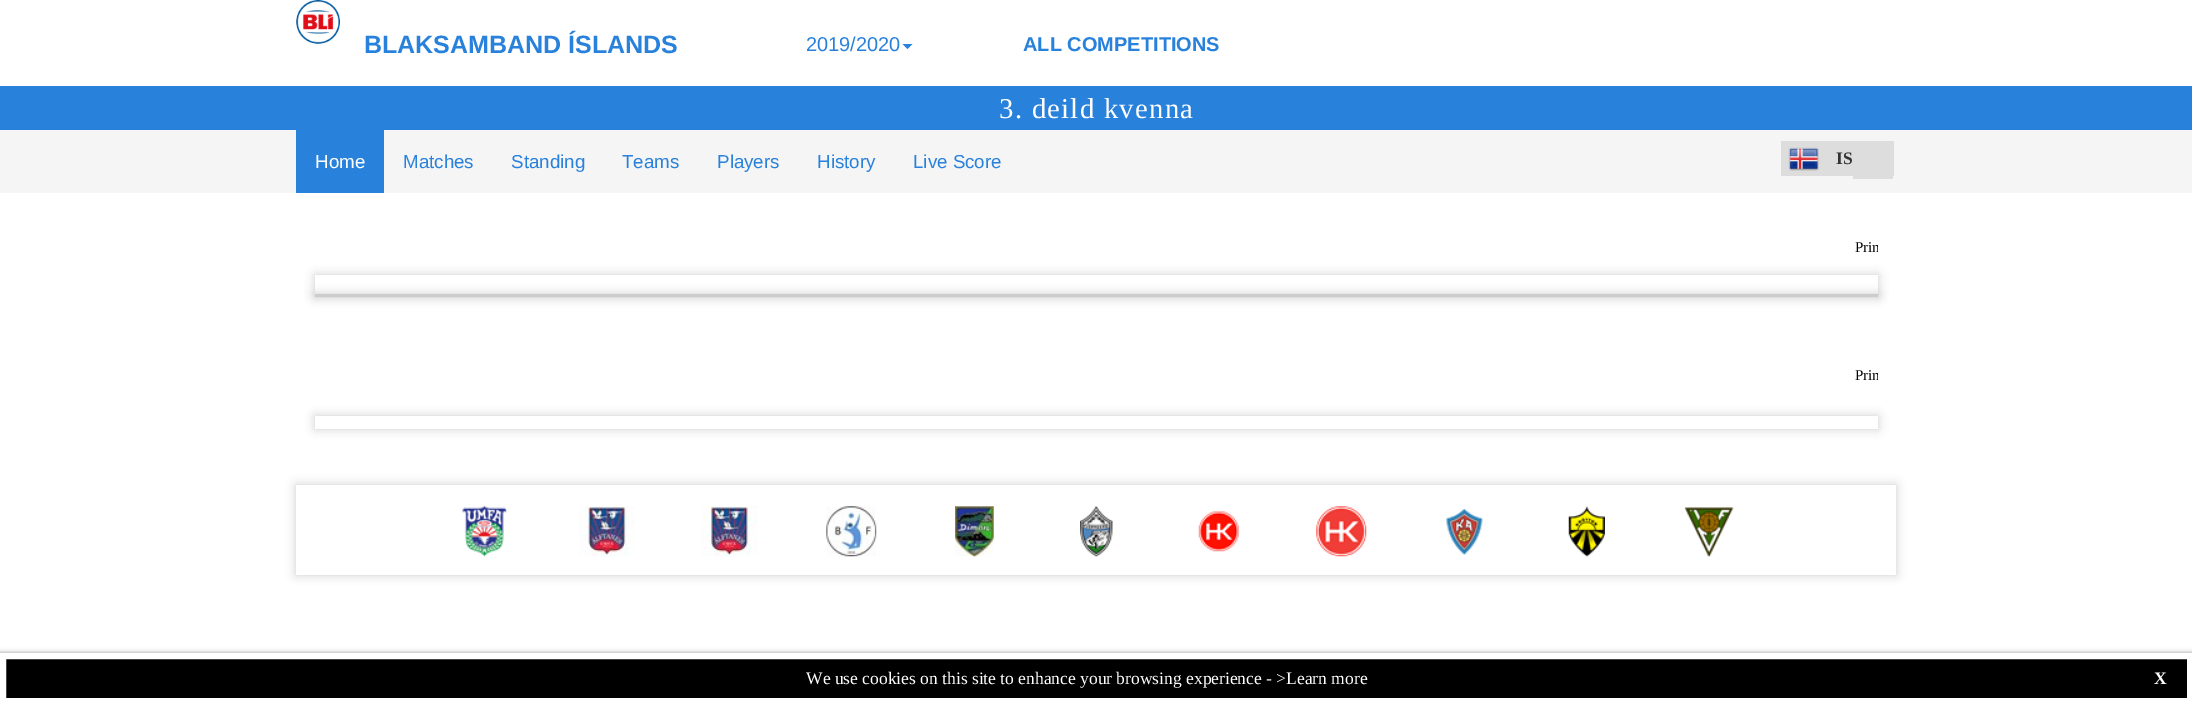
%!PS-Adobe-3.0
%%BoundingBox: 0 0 2192 703
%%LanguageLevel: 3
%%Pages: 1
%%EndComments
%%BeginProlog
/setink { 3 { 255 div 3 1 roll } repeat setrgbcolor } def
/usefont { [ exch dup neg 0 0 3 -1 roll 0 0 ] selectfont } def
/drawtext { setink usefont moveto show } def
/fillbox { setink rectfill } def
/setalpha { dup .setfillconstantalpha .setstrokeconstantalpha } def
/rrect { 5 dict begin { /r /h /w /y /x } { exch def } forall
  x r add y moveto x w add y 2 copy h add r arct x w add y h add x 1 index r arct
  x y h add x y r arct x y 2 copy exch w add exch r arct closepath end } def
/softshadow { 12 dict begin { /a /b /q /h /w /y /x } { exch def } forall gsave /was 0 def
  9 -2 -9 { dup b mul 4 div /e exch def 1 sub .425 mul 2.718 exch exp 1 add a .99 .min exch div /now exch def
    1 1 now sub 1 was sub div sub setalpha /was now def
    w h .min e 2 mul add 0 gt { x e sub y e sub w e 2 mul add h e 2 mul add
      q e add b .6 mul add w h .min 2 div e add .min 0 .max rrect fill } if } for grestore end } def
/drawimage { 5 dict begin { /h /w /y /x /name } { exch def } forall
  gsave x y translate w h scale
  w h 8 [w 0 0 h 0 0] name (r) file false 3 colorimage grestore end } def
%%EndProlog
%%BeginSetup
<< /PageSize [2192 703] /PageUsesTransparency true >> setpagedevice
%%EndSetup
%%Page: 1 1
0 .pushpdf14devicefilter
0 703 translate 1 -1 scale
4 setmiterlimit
0 0 2192 703 255 255 255 fillbox
(assets/img1.rgb) 296 0 44 44 drawimage
(BLAKSAMBAND ÍSLANDS) 364 53 /LiberationSans-Bold 25 40 129 218 drawtext
(2019/2020) 806 51 /LiberationSans-Regular 20 40 129 218 drawtext
902.5 44 moveto 912.5 44 lineto 907.5 49 lineto closepath fill
(ALL COMPETITIONS) 1023 51 /LiberationSans-Bold 20 40 129 218 drawtext
0 86 2192 44 40 129 218 fillbox
/LiberationSerif-Regular 28.75 usefont
255 255 255 setink
999 118 moveto 1.25 0 (3. deild kvenna) ashow
0 130 2192 63 245 245 245 fillbox
296 130 88 63 40 129 218 fillbox
(Home) 315 168 /LiberationSans-Regular 18.75 255 255 255 drawtext
(Matches) 403 168 /LiberationSans-Regular 18.75 40 129 218 drawtext
(Standing) 511 168 /LiberationSans-Regular 18.75 40 129 218 drawtext
(Teams) 622 168 /LiberationSans-Regular 18.75 40 129 218 drawtext
(Players) 717 168 /LiberationSans-Regular 18.75 40 129 218 drawtext
(History) 817 168 /LiberationSans-Regular 18.75 40 129 218 drawtext
(Live Score) 913 168 /LiberationSans-Regular 18.75 40 129 218 drawtext
1781 141 113 35 221 221 221 fillbox
(assets/img2.rgb) 1788 147 31 24 drawimage
(IS) 1836 164 /LiberationSerif-Bold 17.5 51 51 51 drawtext
1853 176 40 3 221 221 221 fillbox
gsave
1848 233 30 30 rectclip
(Prin) 1855 252 /LiberationSerif-Regular 15 0 0 0 drawtext
grestore
gsave
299 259 moveto 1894 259 lineto 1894 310 lineto 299 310 lineto closepath 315 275 moveto 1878 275 lineto 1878 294 lineto 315 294 lineto closepath eoclip newpath
204 204 204 setink
315 275 1563 19 0 5 1 softshadow
grestore
0.75 setalpha
315 275 1563 19 255 255 255 fillbox
1 setalpha
204 204 204 setink
315 294 1563 3 0 5 1 softshadow
315 294 1563 3 204 204 204 fillbox
gsave
1848 361 30 30 rectclip
(Prin) 1855 380 /LiberationSerif-Regular 15 0 0 0 drawtext
grestore
gsave
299 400 moveto 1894 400 lineto 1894 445 lineto 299 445 lineto closepath 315 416 moveto 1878 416 lineto 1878 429 lineto 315 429 lineto closepath eoclip newpath
315 416 1563 13 0 5 1 softshadow
grestore
gsave
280 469 moveto 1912 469 lineto 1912 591 lineto 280 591 lineto closepath 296 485 moveto 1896 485 lineto 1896 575 lineto 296 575 lineto closepath eoclip newpath
296 485 1600 90 0 5 1 softshadow
grestore
0.75 setalpha
296 485 1 90 255 255 255 fillbox
1 setalpha
(assets/img3.rgb) 462 506 45 51 drawimage
(assets/img4.rgb) 579 506 56 51 drawimage
(assets/img5.rgb) 701 506 57 51 drawimage
(assets/img6.rgb) 826 506 51 51 drawimage
(assets/img7.rgb) 955 506 39 51 drawimage
(assets/img8.rgb) 1080 506 33 51 drawimage
(assets/img9.rgb) 1198 510 42 42 drawimage
(assets/img10.rgb) 1316 506 51 51 drawimage
(assets/img11.rgb) 1445 508 38 48 drawimage
(assets/img12.rgb) 1568 506 37 51 drawimage
(assets/img13.rgb) 1684 507 50 50 drawimage
153 153 153 setink
0 653 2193 50 0 2.5 1 softshadow
0 0 0 setink
3 656 moveto 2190 656 lineto 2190 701 lineto 3 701 lineto closepath gsave fill grestore
255 255 255 setink
6 setlinewidth
stroke
(We use cookies on this site to enhance your browsing experience - >Learn more) 806 684 /LiberationSerif-Regular 17.5 255 255 255 drawtext
(X) 2154 684 /LiberationSerif-Bold 17.5 255 255 255 drawtext
.poppdf14devicefilter showpage
%%EOF
